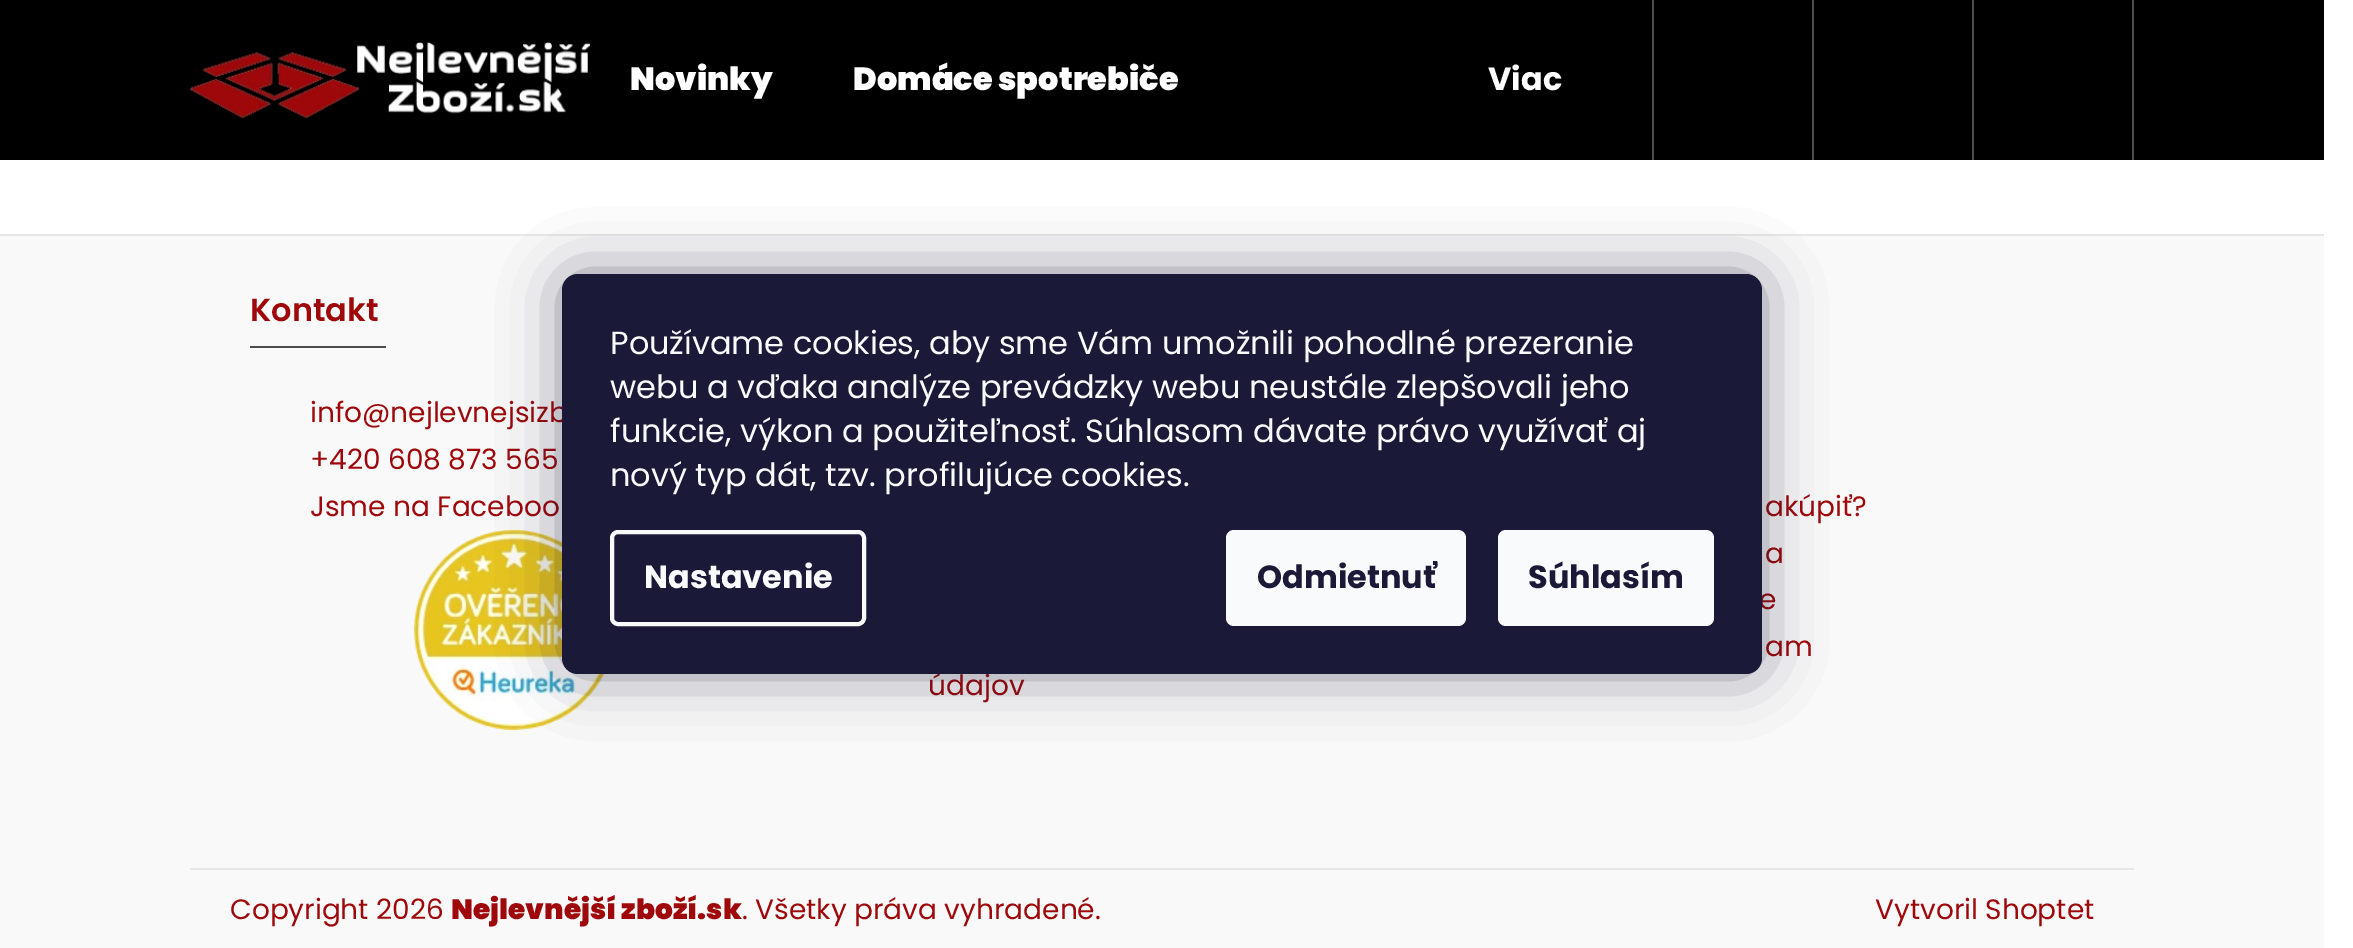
%!PS-Adobe-3.0
%%BoundingBox: 0 0 2353 948
%%LanguageLevel: 3
%%Pages: 1
%%EndComments
%%BeginProlog
/setink { 3 { 255 div 3 1 roll } repeat setrgbcolor } def
/usefont { [ exch dup neg 0 0 3 -1 roll 0 0 ] selectfont } def
/drawtext { setink usefont moveto show } def
/fillbox { setink rectfill } def
/setalpha { dup .setfillconstantalpha .setstrokeconstantalpha } def
/rrect { 5 dict begin { /r /h /w /y /x } { exch def } forall
  x r add y moveto x w add y 2 copy h add r arct x w add y h add x 1 index r arct
  x y h add x y r arct x y 2 copy exch w add exch r arct closepath end } def
/softshadow { 12 dict begin { /a /b /q /h /w /y /x } { exch def } forall gsave /was 0 def
  9 -2 -9 { dup b mul 4 div /e exch def 1 sub .425 mul 2.718 exch exp 1 add a .99 .min exch div /now exch def
    1 1 now sub 1 was sub div sub setalpha /was now def
    w h .min e 2 mul add 0 gt { x e sub y e sub w e 2 mul add h e 2 mul add
      q e add b .6 mul add w h .min 2 div e add .min 0 .max rrect fill } if } for grestore end } def
/drawimage { 5 dict begin { /h /w /y /x /name } { exch def } forall
  gsave x y translate w h scale
  w h 8 [w 0 0 h 0 0] name (r) file false 3 colorimage grestore end } def
%%EndProlog
%%BeginSetup
<< /PageSize [2353 948] /PageUsesTransparency true >> setpagedevice
%%EndSetup
%%Page: 1 1
0 .pushpdf14devicefilter
0 948 translate 1 -1 scale
4 setmiterlimit
0 0 2353 948 255 255 255 fillbox
0 0 2324 160 0 0 0 fillbox
(assets/img1.rgb) 190 42 400 76 drawimage
(Novinky) 630 90 /Poppins-Black 32 255 255 255 drawtext
(Domáce spotrebiče) 853 90 /Poppins-Black 32 255 255 255 drawtext
(Viac) 1488 90 /Poppins-Bold 32 255 255 255 drawtext
2132 0 2 160 77 77 77 fillbox
1652 0 2 160 77 77 77 fillbox
1812 0 2 160 77 77 77 fillbox
1972 0 2 160 77 77 77 fillbox
0 236 2324 712 249 249 249 fillbox
0 234 2324 2 230 230 230 fillbox
(Kontakt) 250 321 /Poppins-SemiBold 32 158 8 10 drawtext
250 346 136 2 76 76 76 fillbox
(info@nejlevnejsizb) 310 422 /Poppins-Regular 28 158 8 10 drawtext
(+420 608 873 565) 310 469 /Poppins-Regular 28 158 8 10 drawtext
(Jsme na Faceboo) 310 516 /Poppins-Regular 28 158 8 10 drawtext
(assets/img2.rgb) 414 530 191 200 drawimage
(akúpiť?) 1765 516 /Poppins-Regular 28 158 8 10 drawtext
(a) 1765 563 /Poppins-Regular 28 158 8 10 drawtext
(e) 1759 609 /Poppins-Regular 28 158 8 10 drawtext
(am) 1765 656 /Poppins-Regular 28 158 8 10 drawtext
(údajov) 928 695 /Poppins-Regular 28 158 8 10 drawtext
190 868 1944 2 230 230 230 fillbox
(Copyright 2026) 230 919 /Poppins-Regular 28 158 8 10 drawtext
(Nejlevnější zboží.sk) 451 919 /Poppins-Black 28 158 8 10 drawtext
(. Všetky práva vyhradené.) 742 919 /Poppins-Regular 28 158 8 10 drawtext
(Vytvoril Shoptet) 1875 919 /Poppins-Regular 28 158 8 10 drawtext
27 25 57 setink
562 274 1200 400 16 30 0.5 softshadow
26 25 55 setink
562 274 1200 400 16 rrect fill
(Používame cookies, aby sme Vám umožnili pohodlné prezeranie) 610 354 /Poppins-Regular 32 248 250 251 drawtext
(webu a vďaka analýze prevádzky webu neustále zlepšovali jeho) 610 398 /Poppins-Regular 32 248 250 251 drawtext
(funkcie, výkon a použiteľnosť. Súhlasom dávate právo využívať aj) 610 442 /Poppins-Regular 32 248 250 251 drawtext
(nový typ dát, tzv. profilujúce cookies.) 610 486 /Poppins-Regular 32 248 250 251 drawtext
4 setlinewidth
612 532 252 92 6 rrect stroke
(Nastavenie) 644 588 /Poppins-Bold 32 248 250 251 drawtext
1226 530 240 96 8 rrect fill
(Odmietnuť) 1257 588 /Poppins-Bold 32 26 25 55 drawtext
248 250 251 setink
1498 530 216 96 8 rrect fill
(Súhlasím) 1528 588 /Poppins-Bold 32 26 25 55 drawtext
.poppdf14devicefilter showpage
%%EOF
